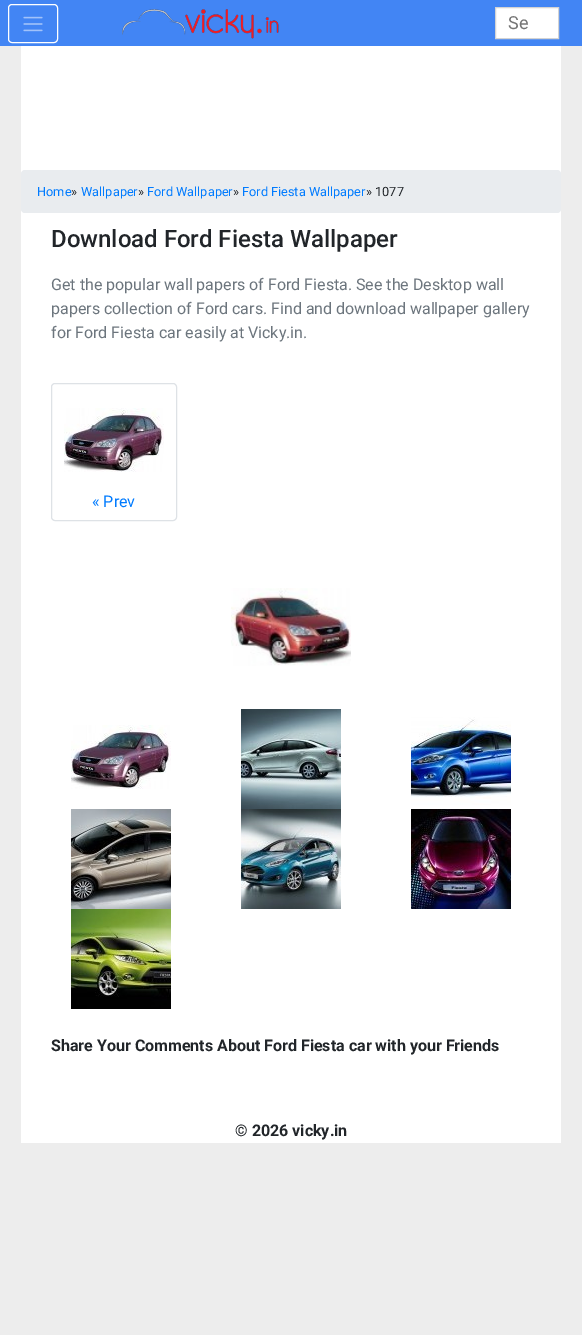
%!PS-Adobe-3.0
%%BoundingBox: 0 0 582 1335
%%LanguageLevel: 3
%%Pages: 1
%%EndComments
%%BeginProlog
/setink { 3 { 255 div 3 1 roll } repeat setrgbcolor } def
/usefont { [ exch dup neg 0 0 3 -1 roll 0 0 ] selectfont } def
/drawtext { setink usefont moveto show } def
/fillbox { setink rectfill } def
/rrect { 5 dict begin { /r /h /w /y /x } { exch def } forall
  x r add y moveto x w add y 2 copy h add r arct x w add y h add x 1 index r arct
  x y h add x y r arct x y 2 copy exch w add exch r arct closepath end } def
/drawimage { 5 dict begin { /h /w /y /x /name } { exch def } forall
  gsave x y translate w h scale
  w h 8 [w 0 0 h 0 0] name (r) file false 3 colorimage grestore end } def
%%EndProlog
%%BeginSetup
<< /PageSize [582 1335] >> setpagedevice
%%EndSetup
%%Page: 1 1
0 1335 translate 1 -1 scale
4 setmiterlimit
0 0 582 1335 237 237 237 fillbox
21 46 540 1097 255 255 255 fillbox
0 0 582 46 66 133 244 fillbox
255 255 255 setink
8.5 4.5 49 38 3.5 rrect stroke
(assets/img1.rgb) 23 16 20 16 drawimage
(assets/img2.rgb) 122 9 157 30 drawimage
495.5 7.5 moveto 558.5 7.5 lineto 558.5 38.5 lineto 495.5 38.5 lineto closepath gsave fill grestore
211 211 211 setink
stroke
(Se) 508 29 /Roboto-Regular 18 117 117 117 drawtext
233 236 239 setink
21 170 540 43 4 rrect fill
(Home) 37 196 /Roboto-Regular 12.75 0 123 255 drawtext
(») 71 196 /Roboto-Regular 12.75 33 37 41 drawtext
(Wallpaper) 81 196 /Roboto-Regular 12.75 0 123 255 drawtext
(») 138 196 /Roboto-Regular 12.75 33 37 41 drawtext
(Ford Wallpaper) 147 196 /Roboto-Regular 12.75 0 123 255 drawtext
(») 233 196 /Roboto-Regular 12.75 33 37 41 drawtext
(Ford Fiesta Wallpaper) 242 196 /Roboto-Regular 12.75 0 123 255 drawtext
(» 1077) 366 196 /Roboto-Regular 12.75 33 37 41 drawtext
(Download Ford Fiesta Wallpaper) 51 247 /Roboto-Medium 24 33 37 41 drawtext
(Get the popular wall papers of Ford Fiesta. See the Desktop wall) 51 290 /Roboto-Regular 16 108 117 125 drawtext
(papers collection of Ford cars. Find and download wallpaper gallery) 51 314 /Roboto-Regular 16 108 117 125 drawtext
(for Ford Fiesta car easily at Vicky.in.) 51 338 /Roboto-Regular 16 108 117 125 drawtext
222 226 230 setink
51.5 383.5 125 137 3.5 rrect stroke
(assets/img3.rgb) 64 408 100 64 drawimage
(« Prev) 92 507 /Roboto-Regular 16 0 123 255 drawtext
(assets/img4.rgb) 231 588 120 78 drawimage
(assets/img3.rgb) 71 725 100 64 drawimage
(assets/img5.rgb) 241 709 100 100 drawimage
(assets/img6.rgb) 411 717 100 88 drawimage
(assets/img7.rgb) 71 809 100 100 drawimage
(assets/img8.rgb) 241 809 100 100 drawimage
(assets/img9.rgb) 411 809 100 100 drawimage
(assets/img10.rgb) 71 909 100 100 drawimage
(Share Your Comments About Ford Fiesta car with your Friends) 51 1051 /Roboto-Bold 16 33 37 41 drawtext
(© 2026 vicky.in) 235 1136 /Roboto-Bold 16 33 37 41 drawtext
showpage
%%EOF
